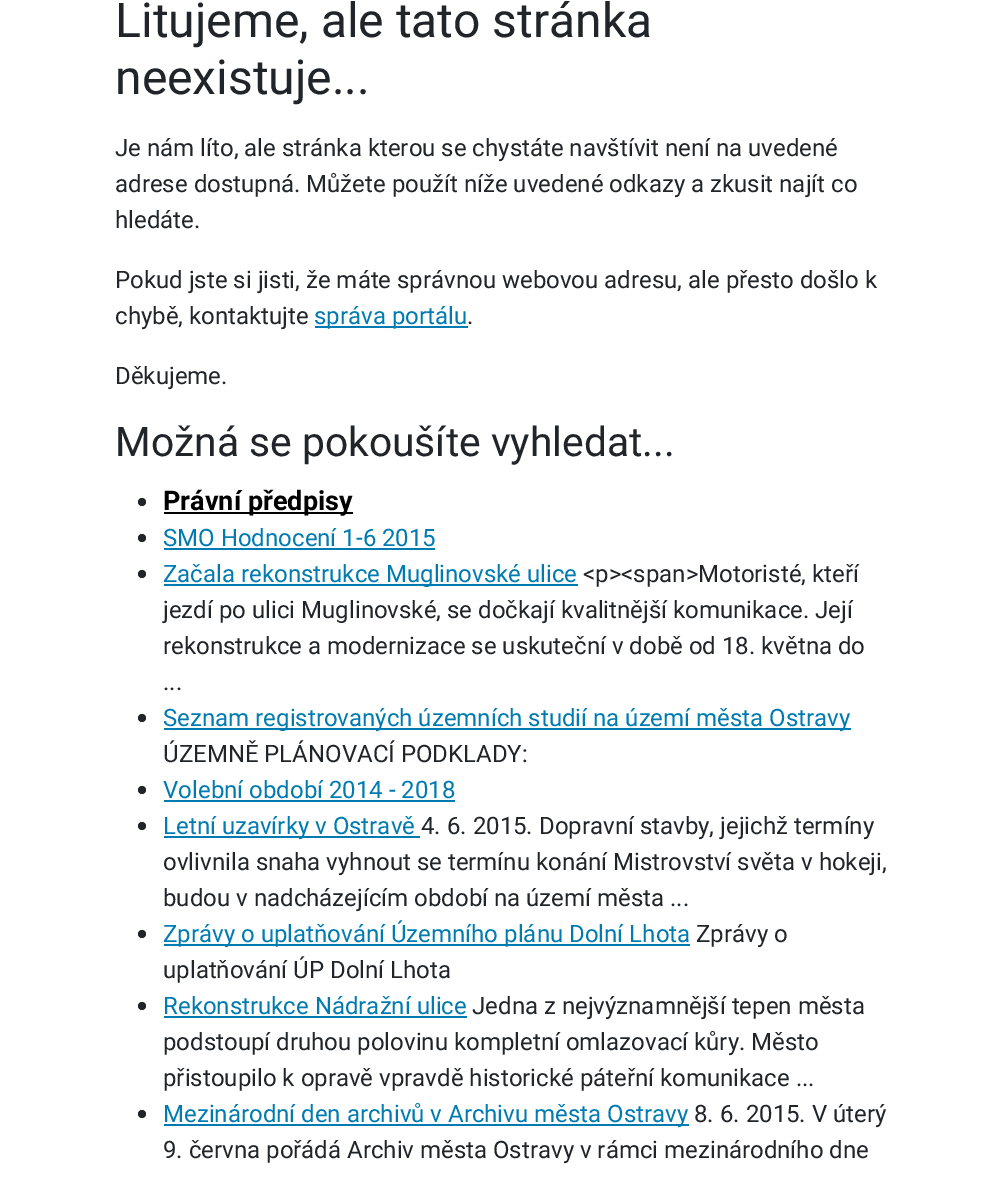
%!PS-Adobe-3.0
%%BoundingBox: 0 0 1003 1179
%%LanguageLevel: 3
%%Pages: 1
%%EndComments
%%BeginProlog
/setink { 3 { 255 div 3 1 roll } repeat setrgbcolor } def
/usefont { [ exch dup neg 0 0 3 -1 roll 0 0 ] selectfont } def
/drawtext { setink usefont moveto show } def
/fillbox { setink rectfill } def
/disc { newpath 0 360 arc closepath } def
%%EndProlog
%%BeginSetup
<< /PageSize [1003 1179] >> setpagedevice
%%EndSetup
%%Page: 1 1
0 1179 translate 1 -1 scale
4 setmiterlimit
0 0 1003 1179 255 255 255 fillbox
(Litujeme, ale tato stránka) 115 37 /Roboto-Regular 48 33 37 41 drawtext
(neexistuje...) 115 94 /Roboto-Regular 48 33 37 41 drawtext
(Je nám líto, ale stránka kterou se chystáte navštívit není na uvedené) 115 156 /Roboto-Regular 24 33 37 41 drawtext
(adrese dostupná. Můžete použít níže uvedené odkazy a zkusit najít co) 115 192 /Roboto-Regular 24 33 37 41 drawtext
(hledáte.) 115 228 /Roboto-Regular 24 33 37 41 drawtext
(Pokud jste si jisti, že máte správnou webovou adresu, ale přesto došlo k) 115 288 /Roboto-Regular 24 33 37 41 drawtext
(chybě, kontaktujte) 115 324 /Roboto-Regular 24 33 37 41 drawtext
315 326 153 2 0 123 177 fillbox
(správa portálu) 314 324 /Roboto-Regular 24 0 123 177 drawtext
(.) 467 324 /Roboto-Regular 24 33 37 41 drawtext
(Děkujeme.) 115 384 /Roboto-Regular 24 33 37 41 drawtext
(Možná se pokoušíte vyhledat...) 115 456 /Roboto-Regular 40.8 33 37 41 drawtext
142 502 4 disc fill
164 512 189 2 0 0 0 fillbox
(Právní předpisy) 163 510 /Roboto-Bold 27 0 0 0 drawtext
33 37 41 setink
142 538 4 disc fill
(SMO Hodnocení 1-6 2015) 163 546 /Roboto-Regular 24 0 123 177 drawtext
164 548 271 2 0 123 177 fillbox
33 37 41 setink
142 574 4 disc fill
164 584 414 2 0 123 177 fillbox
(Začala rekonstrukce Muglinovské ulice) 163 582 /Roboto-Regular 24 0 123 177 drawtext
(<p><span>Motoristé, kteří) 583 582 /Roboto-Regular 24 33 37 41 drawtext
(jezdí po ulici Muglinovské, se dočkají kvalitnější komunikace. Její) 163 618 /Roboto-Regular 24 33 37 41 drawtext
(rekonstrukce a modernizace se uskuteční v době od 18. května do) 163 654 /Roboto-Regular 24 33 37 41 drawtext
(...) 163 690 /Roboto-Regular 24 33 37 41 drawtext
142 718 4 disc fill
164 728 687 2 0 123 177 fillbox
(Seznam registrovaných územních studií na území města Ostravy) 163 726 /Roboto-Regular 24 0 123 177 drawtext
(ÚZEMNĚ PLÁNOVACÍ PODKLADY:) 163 762 /Roboto-Regular 24 33 37 41 drawtext
142 790 4 disc fill
(Volební období 2014 - 2018) 163 798 /Roboto-Regular 24 0 123 177 drawtext
164 800 291 2 0 123 177 fillbox
33 37 41 setink
142 826 4 disc fill
164 836 256 2 0 123 177 fillbox
(Letní uzavírky v Ostravě) 163 834 /Roboto-Regular 24 0 123 177 drawtext
(4. 6. 2015. Dopravní stavby, jejichž termíny) 421 834 /Roboto-Regular 24 33 37 41 drawtext
(ovlivnila snaha vyhnout se termínu konání Mistrovství světa v hokeji,) 163 870 /Roboto-Regular 24 33 37 41 drawtext
(budou v nadcházejícím období na území města ...) 163 906 /Roboto-Regular 24 33 37 41 drawtext
142 934 4 disc fill
164 944 526 2 0 123 177 fillbox
(Zprávy o uplatňování Územního plánu Dolní Lhota) 163 942 /Roboto-Regular 24 0 123 177 drawtext
(Zprávy o) 696 942 /Roboto-Regular 24 33 37 41 drawtext
(uplatňování ÚP Dolní Lhota) 163 978 /Roboto-Regular 24 33 37 41 drawtext
142 1006 4 disc fill
(Rekonstrukce Nádražní ulice) 163 1014 /Roboto-Regular 24 0 123 177 drawtext
164 1016 303 2 0 123 177 fillbox
(Jedna z nejvýznamnější tepen města) 472 1014 /Roboto-Regular 24 33 37 41 drawtext
(podstoupí druhou polovinu kompletní omlazovací kůry. Město) 163 1050 /Roboto-Regular 24 33 37 41 drawtext
(přistoupilo k opravě vpravdě historické páteřní komunikace ...) 163 1086 /Roboto-Regular 24 33 37 41 drawtext
142 1114 4 disc fill
164 1124 525 2 0 123 177 fillbox
(Mezinárodní den archivů v Archivu města Ostravy) 163 1122 /Roboto-Regular 24 0 123 177 drawtext
(8. 6. 2015. V úterý) 694 1122 /Roboto-Regular 24 33 37 41 drawtext
(9. června pořádá Archiv města Ostravy v rámci mezinárodního dne) 163 1158 /Roboto-Regular 24 33 37 41 drawtext
showpage
%%EOF
